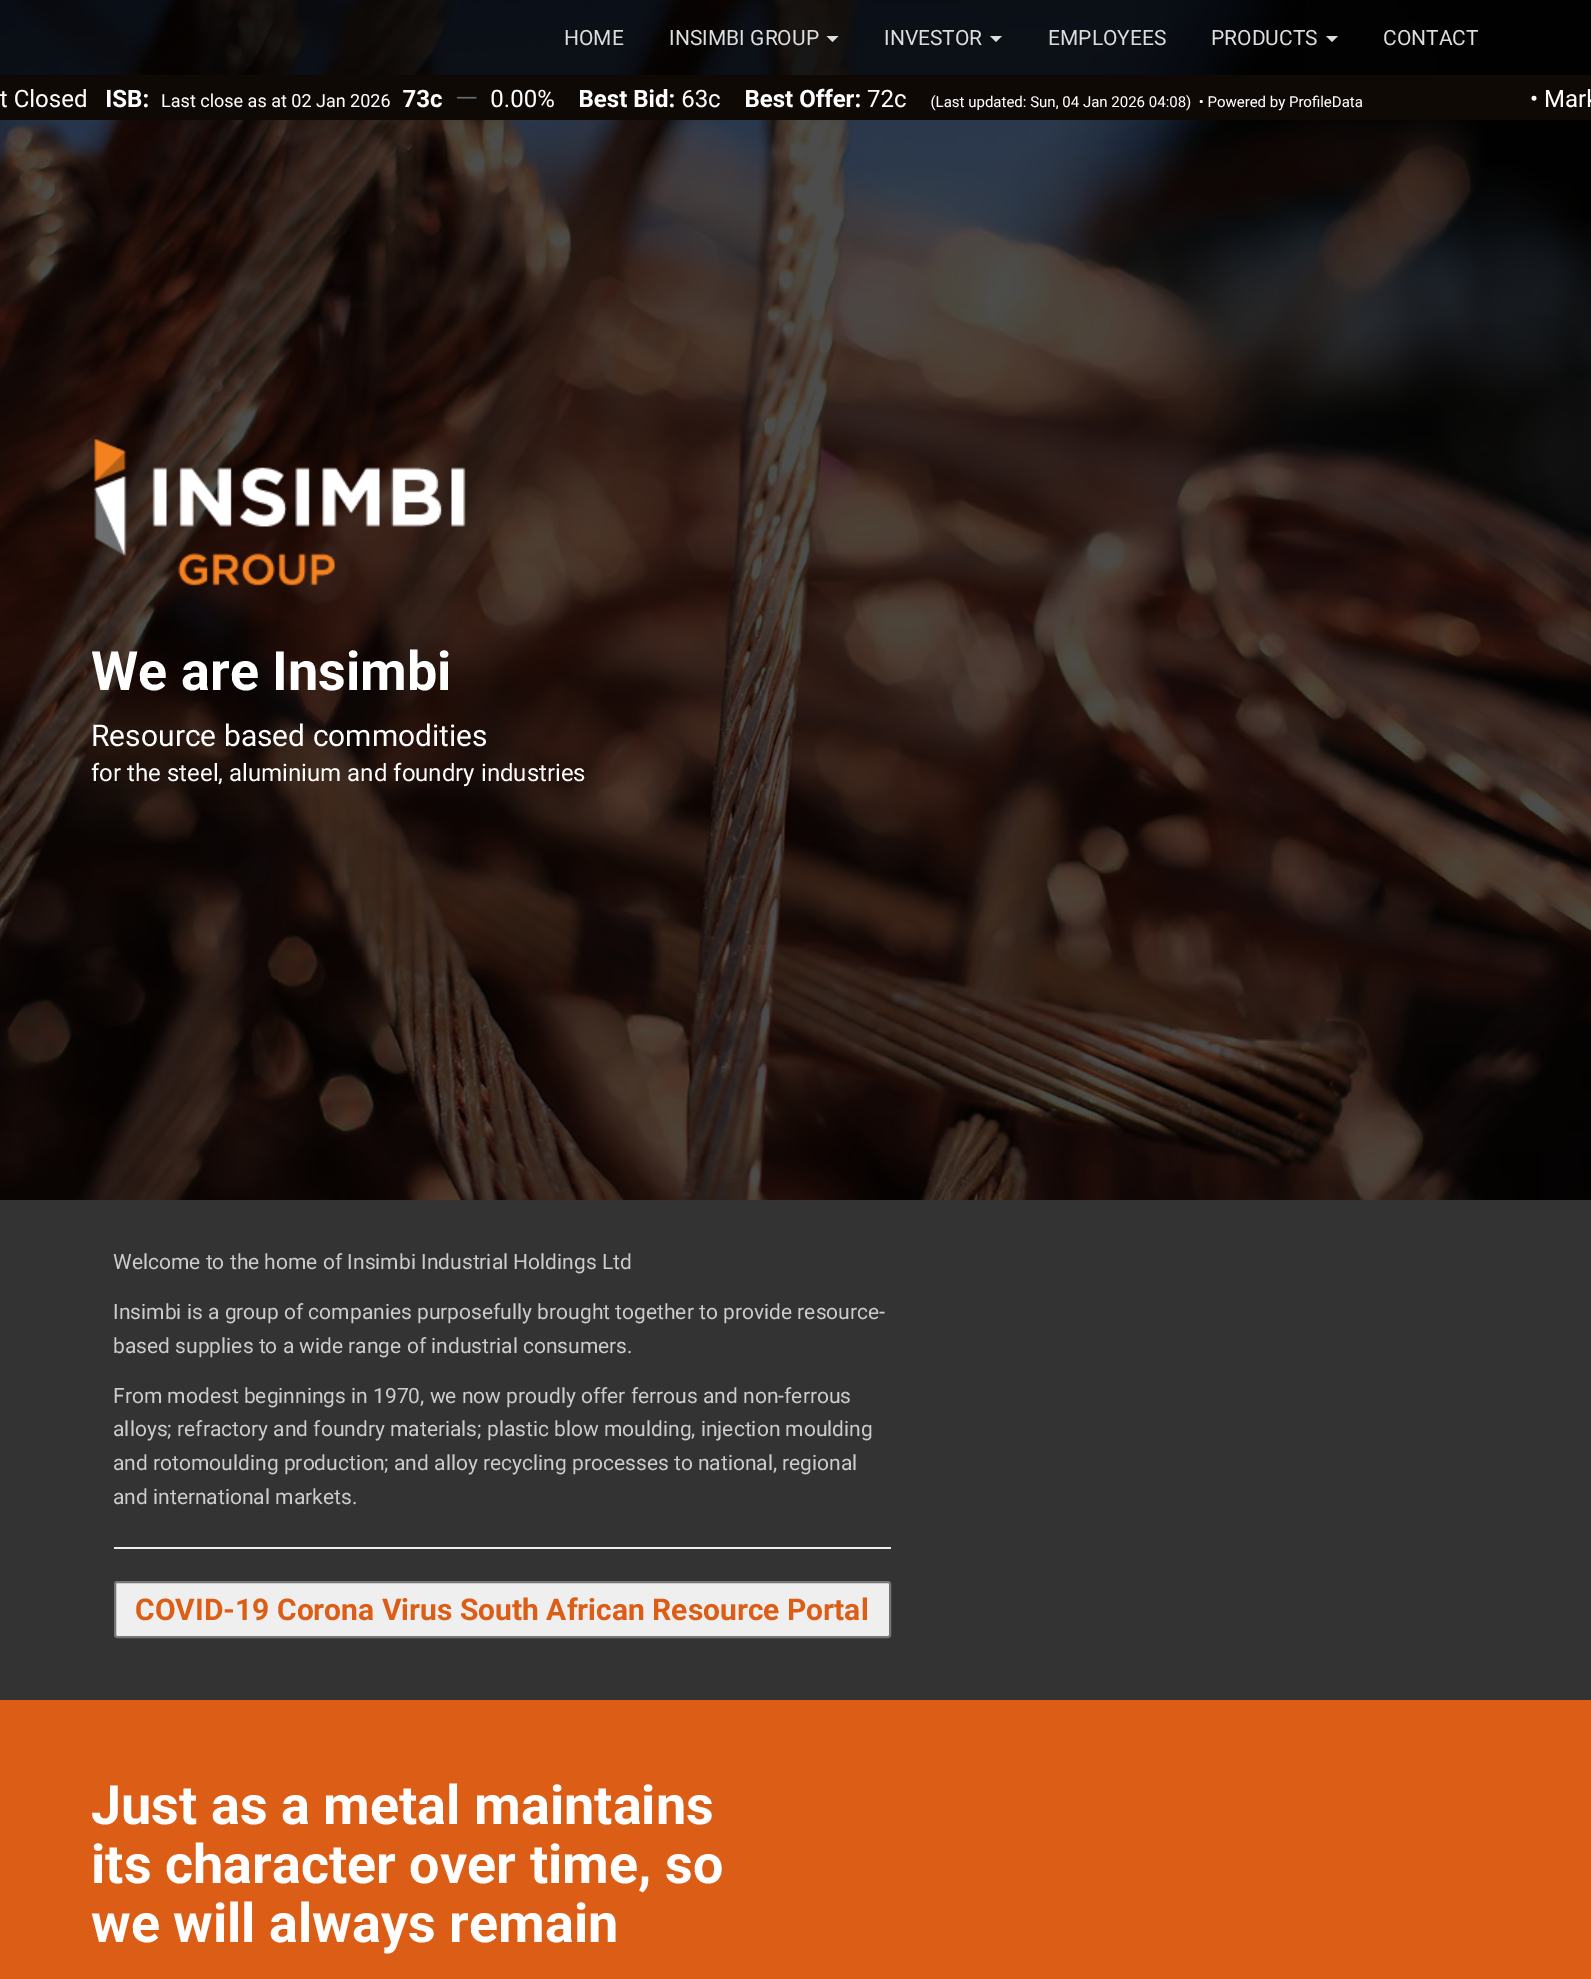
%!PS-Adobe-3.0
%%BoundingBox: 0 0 1591 1979
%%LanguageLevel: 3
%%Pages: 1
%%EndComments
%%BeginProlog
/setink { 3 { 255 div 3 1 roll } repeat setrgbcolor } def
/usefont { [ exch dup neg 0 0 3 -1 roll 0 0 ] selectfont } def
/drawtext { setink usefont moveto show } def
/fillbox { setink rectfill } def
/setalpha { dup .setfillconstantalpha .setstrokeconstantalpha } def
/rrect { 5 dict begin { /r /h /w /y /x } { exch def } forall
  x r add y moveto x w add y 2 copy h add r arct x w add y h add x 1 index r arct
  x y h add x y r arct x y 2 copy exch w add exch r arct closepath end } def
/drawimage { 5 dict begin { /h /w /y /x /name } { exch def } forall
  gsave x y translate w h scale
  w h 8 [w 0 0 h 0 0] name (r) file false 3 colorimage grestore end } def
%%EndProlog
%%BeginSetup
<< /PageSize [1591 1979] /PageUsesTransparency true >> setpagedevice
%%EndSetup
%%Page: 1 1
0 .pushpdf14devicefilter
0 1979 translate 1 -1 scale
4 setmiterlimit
0 0 1591 1979 51 51 51 fillbox
(assets/img2.rgb) 0 0 1591 1200 drawimage
0.7 setalpha
0 0 1305 75 0 0 0 fillbox
1 setalpha
(HOME) 564 45 /Roboto-Regular 21 221 221 221 drawtext
(INSIMBI GROUP) 669 45 /Roboto-Regular 21 221 221 221 drawtext
826.5 36 moveto 838.5 36 lineto 832.5 42 lineto closepath fill
(INVESTOR) 884 45 /Roboto-Regular 21 221 221 221 drawtext
990 36 moveto 1002 36 lineto 996 42 lineto closepath fill
(EMPLOYEES) 1048 45 /Roboto-Regular 21 221 221 221 drawtext
(PRODUCTS) 1211 45 /Roboto-Regular 21 221 221 221 drawtext
1326 36 moveto 1338 36 lineto 1332 42 lineto closepath fill
(CONTACT) 1383 45 /Roboto-Regular 21 221 221 221 drawtext
(assets/img1.rgb) 0 75 1591 45 drawimage
(assets/img3.rgb) 94 439 372 147 drawimage
(We are Insimbi) 91 690 /Roboto-Bold 54 255 255 255 drawtext
(Resource based commodities) 91 746 /Roboto-Regular 30 255 255 255 drawtext
(for the steel, aluminium and foundry industries) 91 781 /Roboto-Regular 24 255 255 255 drawtext
(Welcome to the home of Insimbi Industrial Holdings Ltd) 113 1269 /Roboto-Regular 21 204 204 204 drawtext
(Insimbi is a group of companies purposefully brought together to provide resource-) 113 1319 /Roboto-Regular 21 204 204 204 drawtext
(based supplies to a wide range of industrial consumers.) 113 1353 /Roboto-Regular 21 204 204 204 drawtext
(From modest beginnings in 1970, we now proudly offer ferrous and non-ferrous) 113 1403 /Roboto-Regular 21 204 204 204 drawtext
(alloys; refractory and foundry materials; plastic blow moulding, injection moulding) 113 1436 /Roboto-Regular 21 204 204 204 drawtext
(and rotomoulding production; and alloy recycling processes to national, regional) 113 1470 /Roboto-Regular 21 204 204 204 drawtext
(and international markets.) 113 1504 /Roboto-Regular 21 204 204 204 drawtext
114 1547 777 2 238 238 238 fillbox
239 239 239 setink
115 1582 775 55 2 rrect gsave fill grestore
118 118 118 setink
2 setlinewidth
stroke
(COVID-19 Corona Virus South African Resource Portal) 135 1620 /Roboto-Bold 30 220 94 22 drawtext
0 1700 1591 279 220 94 22 fillbox
(Just as a metal maintains) 91 1824 /Roboto-Bold 54 255 255 255 drawtext
(its character over time, so) 91 1883 /Roboto-Bold 54 255 255 255 drawtext
(we will always remain) 91 1942 /Roboto-Bold 54 255 255 255 drawtext
.poppdf14devicefilter showpage
%%EOF
